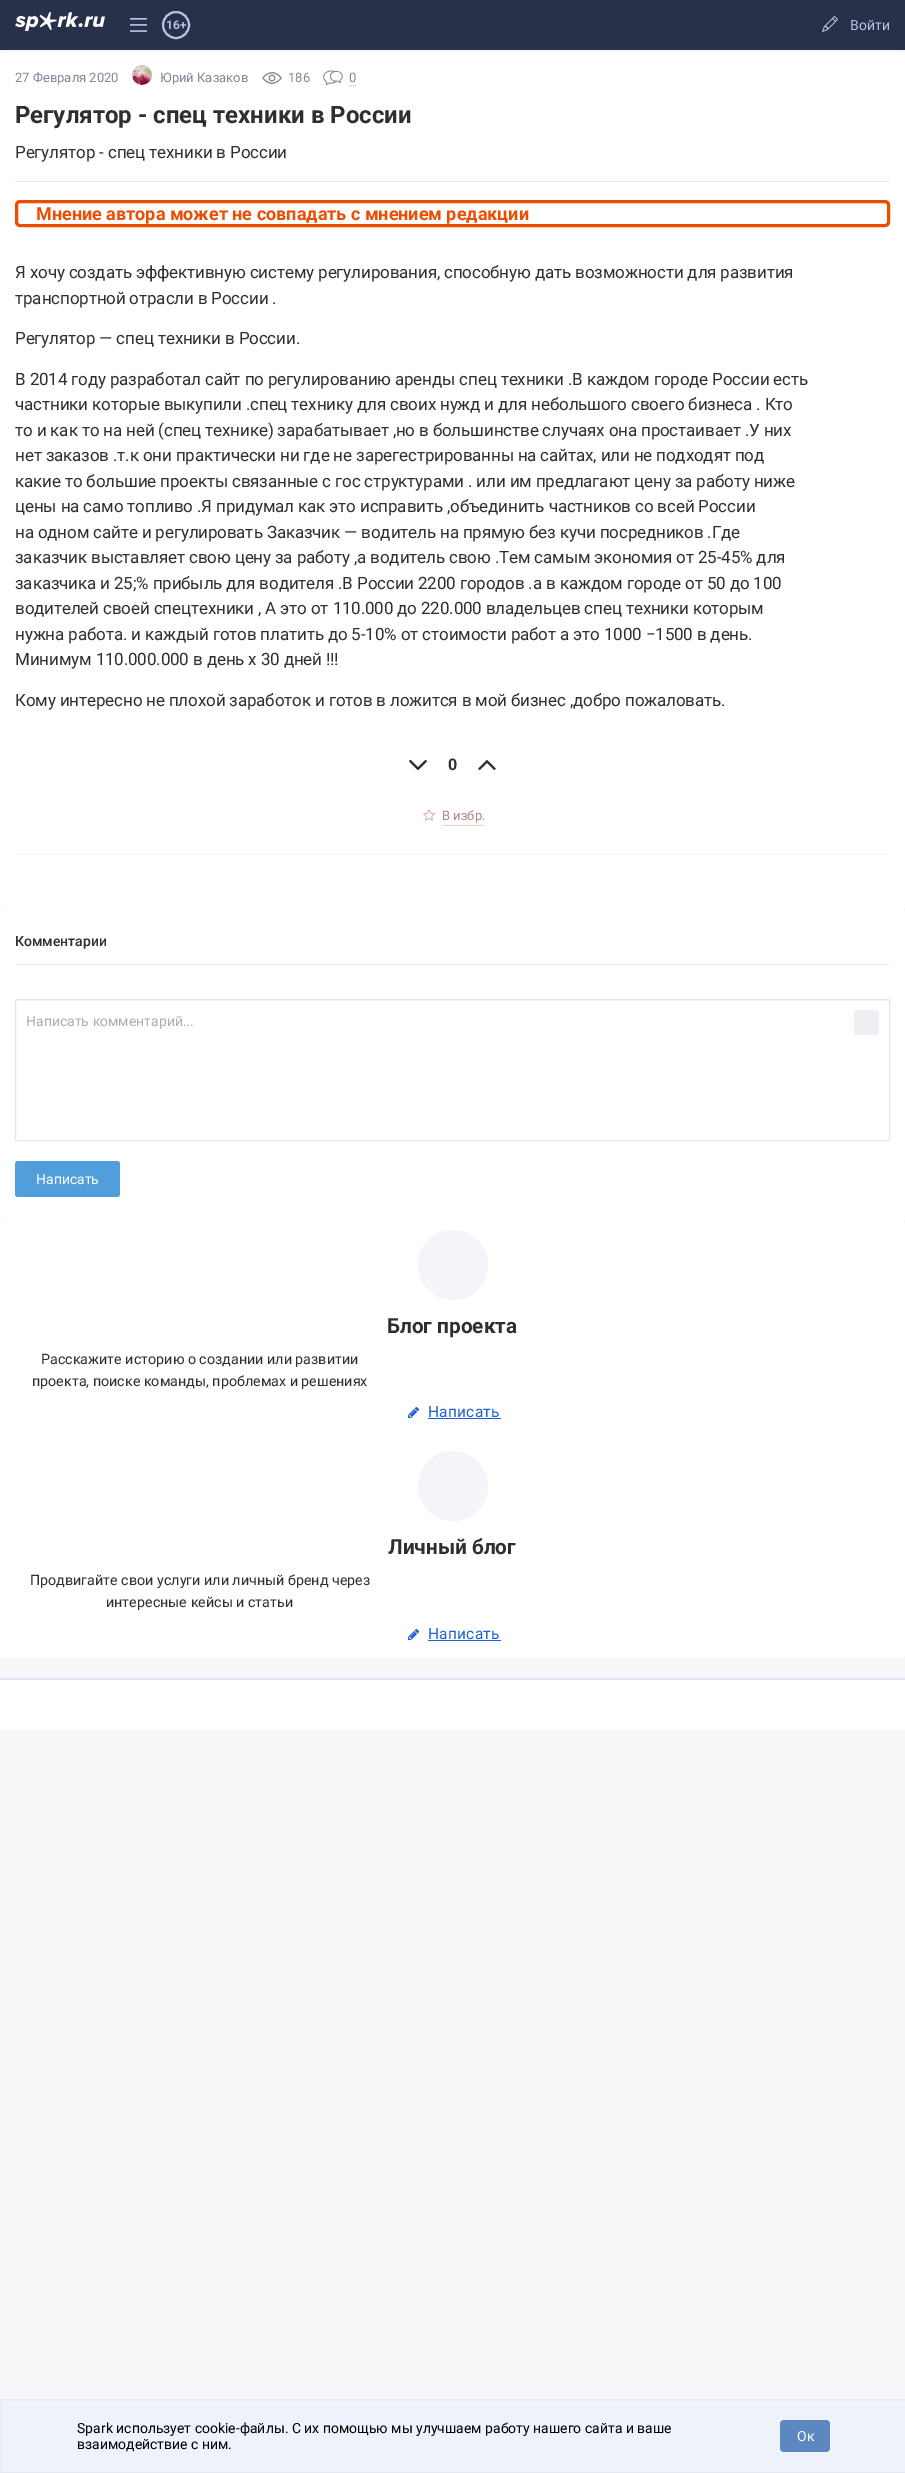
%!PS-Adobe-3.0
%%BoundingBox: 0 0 905 2473
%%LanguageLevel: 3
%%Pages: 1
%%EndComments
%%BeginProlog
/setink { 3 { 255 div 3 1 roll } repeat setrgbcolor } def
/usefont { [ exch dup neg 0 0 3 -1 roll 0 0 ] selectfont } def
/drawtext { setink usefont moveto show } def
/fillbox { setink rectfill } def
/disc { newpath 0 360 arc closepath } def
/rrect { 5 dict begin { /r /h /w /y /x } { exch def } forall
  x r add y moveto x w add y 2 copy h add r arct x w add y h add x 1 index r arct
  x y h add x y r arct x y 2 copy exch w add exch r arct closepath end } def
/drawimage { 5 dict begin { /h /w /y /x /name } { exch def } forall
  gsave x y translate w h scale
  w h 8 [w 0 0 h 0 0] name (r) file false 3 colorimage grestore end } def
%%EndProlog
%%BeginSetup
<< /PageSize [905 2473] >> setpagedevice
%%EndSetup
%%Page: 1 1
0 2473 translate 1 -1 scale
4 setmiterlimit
0 0 905 2473 39 49 73 fillbox
(assets/img1.rgb) 15 12 90 19 drawimage
(assets/img2.rgb) 130 18 17 14 drawimage
188 196 230 setink
2 setlinewidth
176 25 13 disc stroke
(16+) 166 29 /Roboto-Bold 12 188 196 230 drawtext
(assets/img3.rgb) 822 16 16 16 drawimage
(Войти) 850 30 /Roboto-Regular 14 188 196 230 drawtext
0 50 905 2349 247 247 249 fillbox
255 255 255 setink
0 52 905 858 3 rrect fill
(27 Февраля 2020) 15 82 /Roboto-Regular 13 127 137 153 drawtext
(assets/img4.rgb) 132 65 20 20 drawimage
(Юрий Казаков) 160 82 /Roboto-Regular 13 127 137 153 drawtext
(assets/img5.rgb) 262 72 20 12 drawimage
(186) 288 82 /Roboto-Regular 13 127 137 153 drawtext
(assets/img6.rgb) 323 70 20 16 drawimage
(0) 349 82 /Roboto-Regular 13 127 137 153 drawtext
196 196 196 setink
1 setlinewidth
349 85.5 moveto 350 85.5 lineto 351 85.5 moveto 352 85.5 lineto 353 85.5 moveto 354 85.5 lineto 355 85.5 moveto 356 85.5 lineto stroke
(Регулятор - спец техники в России) 15 123 /Roboto-Bold 24 47 47 47 drawtext
15 181 875 1 229 231 245 fillbox
/Roboto-Regular 17 usefont
47 47 47 setink
15 158 moveto -0.15 0 (Регулятор - спец техники в России) ashow
237 77 0 setink
3 setlinewidth
16.5 201.5 872 24 3.5 rrect stroke
(Мнение автора может не совпадать с мнением редакции) 36 220 /Roboto-Bold 18 237 77 0 drawtext
/Roboto-Regular 17 usefont
47 47 47 setink
15 278 moveto -0.15 0 (Я хочу создать эффективную систему регулирования, способную дать возможности для развития) ashow
15 304 moveto -0.15 0 (транспортной отрасли в России .) ashow
15 344 moveto -0.15 0 (Регулятор — спец техники в России.) ashow
15 385 moveto -0.15 0 (В 2014 году разработал сайт по регулированию аренды спец техники .В каждом городе России есть) ashow
15 410 moveto -0.15 0 (частники которые выкупили .спец технику для своих нужд и для небольшого своего бизнеса . Кто) ashow
15 436 moveto -0.15 0 (то и как то на ней \(спец технике\) зарабатывает ,но в большинстве случаях она простаивает .У них) ashow
15 461 moveto -0.15 0 (нет заказов .т.к они практически ни где не зарегестрированны на сайтах, или не подходят под) ashow
15 487 moveto -0.15 0 (какие то большие проекты связанные с гос структурами . или им предлагают цену за работу ниже) ashow
15 512 moveto -0.15 0 (цены на само топливо .Я придумал как это исправить ,объединить частников со всей России) ashow
15 538 moveto -0.15 0 (на одном сайте и регулировать Заказчик — водитель на прямую без кучи посредников .Где) ashow
15 563 moveto -0.15 0 (заказчик выставляет свою цену за работу ,а водитель свою .Тем самым экономия от 25-45% для) ashow
15 589 moveto -0.15 0 (заказчика и 25;% прибыль для водителя .В России 2200 городов .а в каждом городе от 50 до 100) ashow
15 614 moveto -0.15 0 (водителей своей спецтехники , А это от 110.000 до 220.000 владельцев спец техники которым) ashow
15 640 moveto -0.15 0 (нужна работа. и каждый готов платить до 5-10% от стоимости работ а это 1000 −1500 в день.) ashow
15 665 moveto -0.15 0 (Минимум 110.000.000 в день х 30 дней !!!) ashow
15 706 moveto -0.15 0 (Кому интересно не плохой заработок и готов в ложится в мой бизнес ,добро пожаловать.) ashow
(assets/img7.rgb) 409 760 18 10 drawimage
(0) 448 770 /Roboto-Bold 16 47 47 47 drawtext
(assets/img8.rgb) 478 760 18 11 drawimage
(assets/img9.rgb) 423 809 12 12 drawimage
(В избр.) 442 820 /Roboto-Regular 13 183 133 133 drawtext
442 825 43 1 238 209 209 fillbox
15 854 875 1 241 243 249 fillbox
255 255 255 setink
0 910 905 312 3 rrect fill
15 964 875 1 236 239 243 fillbox
(Комментарии) 15 946 /Roboto-Medium 14 47 47 47 drawtext
250 250 250 setink
17 1001 moveto 888 1001 lineto 889 1001 889 1001 889 1002 curveto 889 1001 lineto 888 1000 lineto 17 1000 lineto 16 1001 lineto 16 1002 lineto 16 1001 16 1001 17 1001 curveto closepath fill
226 230 237 setink
1 setlinewidth
15.5 999.5 874 141 1.5 rrect stroke
(Написать комментарий...) 26 1026 /Roboto-Regular 14 163 177 186 drawtext
238 239 242 setink
854 1010 25 25 3 rrect fill
80 159 220 setink
15 1161 105 36 3 rrect fill
(Написать) 36 1184 /Roboto-Regular 14 255 255 255 drawtext
0 1222 905 436 3 rrect fill
243 245 249 setink
453 1265 35 disc fill
(Блог проекта) 387 1333 /Roboto-Bold 20.75 47 47 47 drawtext
(Расскажите историю о создании или развитии) 41 1364 /Roboto-Regular 14.3 47 47 47 drawtext
(проекта, поиске команды, проблемах и решениях) 32 1386 /Roboto-Regular 14.3 47 47 47 drawtext
(assets/img10.rgb) 408 1407 11 12 drawimage
/Roboto-Regular 15.5 usefont
31 96 214 setink
428 1417 moveto 0.25 0 (Написать) ashow
428 1418 73 1 31 96 214 fillbox
243 245 249 setink
453 1486 35 disc fill
(Личный блог) 388 1554 /Roboto-Bold 20.75 47 47 47 drawtext
(Продвигайте свои услуги или личный бренд через) 30 1585 /Roboto-Regular 14.3 47 47 47 drawtext
(интересные кейсы и статьи) 106 1607 /Roboto-Regular 14.3 47 47 47 drawtext
(assets/img10.rgb) 408 1629 11 12 drawimage
/Roboto-Regular 15.5 usefont
31 96 214 setink
428 1639 moveto 0.25 0 (Написать) ashow
428 1640 73 1 31 96 214 fillbox
0 1680 905 50 255 255 255 fillbox
0 1678 905 2 223 230 242 fillbox
237 242 251 setink
0.5 2399.5 moveto 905.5 2399.5 lineto 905.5 2472.5 lineto 0.5 2472.5 lineto closepath gsave fill grestore
230 233 242 setink
stroke
(Spark использует cookie-файлы. С их помощью мы улучшаем работу нашего сайта и ваше) 77 2433 /Roboto-Regular 14 0 0 0 drawtext
(взаимодействие с ним.) 77 2449 /Roboto-Regular 14 0 0 0 drawtext
93 135 192 setink
780 2420 50 32 4 rrect fill
(Ок) 797 2441 /Roboto-Regular 14 255 255 255 drawtext
showpage
%%EOF
